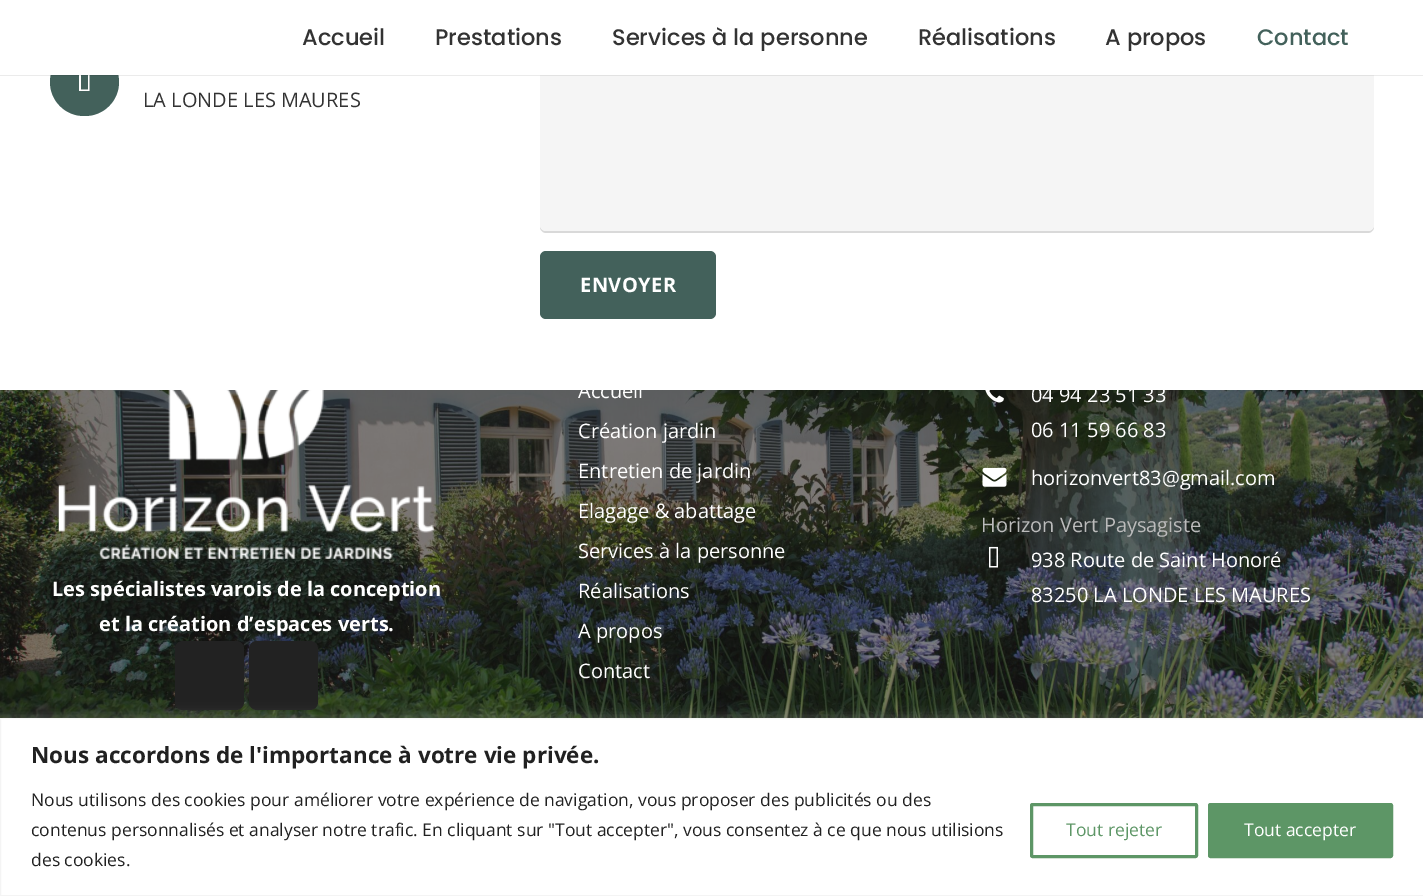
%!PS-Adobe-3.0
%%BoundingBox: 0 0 1423 896
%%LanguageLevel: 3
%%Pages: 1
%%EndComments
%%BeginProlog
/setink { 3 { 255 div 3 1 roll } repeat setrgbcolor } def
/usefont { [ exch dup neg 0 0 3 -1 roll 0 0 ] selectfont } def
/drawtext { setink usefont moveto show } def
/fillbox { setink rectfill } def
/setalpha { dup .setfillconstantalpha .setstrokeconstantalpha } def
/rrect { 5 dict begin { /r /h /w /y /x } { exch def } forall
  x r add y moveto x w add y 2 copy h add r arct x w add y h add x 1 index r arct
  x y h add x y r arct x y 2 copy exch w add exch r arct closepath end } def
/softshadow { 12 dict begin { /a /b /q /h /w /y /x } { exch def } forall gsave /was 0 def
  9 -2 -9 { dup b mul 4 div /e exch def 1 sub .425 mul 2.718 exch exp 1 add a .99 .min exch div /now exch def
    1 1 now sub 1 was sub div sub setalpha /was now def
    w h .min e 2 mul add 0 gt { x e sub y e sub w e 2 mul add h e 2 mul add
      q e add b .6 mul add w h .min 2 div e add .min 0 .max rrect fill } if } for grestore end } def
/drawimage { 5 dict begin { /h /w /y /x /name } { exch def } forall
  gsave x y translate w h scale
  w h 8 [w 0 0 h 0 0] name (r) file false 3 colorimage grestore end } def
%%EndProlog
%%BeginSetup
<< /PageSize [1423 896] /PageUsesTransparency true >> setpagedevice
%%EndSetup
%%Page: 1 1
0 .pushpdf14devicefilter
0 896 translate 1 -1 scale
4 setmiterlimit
0 0 1423 896 255 255 255 fillbox
67 97 91 setink
50 48 69 68 34 rrect fill
255 255 255 setink
81 89.5 moveto 81 69.5 lineto 88 69.5 lineto 88 89.5 lineto closepath 79 91 moveto 89.5 91 lineto 89.5 67.5 lineto 79 67.5 lineto closepath fill
217 217 217 setink
540 225 moveto 540 227 lineto 540 230 543 233 546 233 curveto 1368 233 lineto 1371 233 1374 230 1374 227 curveto 1374 33 lineto 1374 225 lineto 1374 229 1371 231 1368 231 curveto 546 231 lineto 543 231 540 229 540 225 curveto closepath fill
245 245 245 setink
540 28 834 203 6 rrect fill
0.08 setalpha
0 0 0 setink
0 75 moveto 0 76 lineto 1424 76 lineto 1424 1 lineto 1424 75 lineto closepath fill
1 setalpha
50 28 1324 47 255 255 255 fillbox
(Accueil) 302 45 /Poppins-Medium 22.5 51 51 51 drawtext
(Prestations) 435 45 /Poppins-Medium 22.5 51 51 51 drawtext
(Services à la personne) 612 45 /Poppins-Medium 22.5 51 51 51 drawtext
(Réalisations) 918 45 /Poppins-Medium 22.5 51 51 51 drawtext
(A propos) 1105 45 /Poppins-Medium 22.5 51 51 51 drawtext
(Contact) 1257 45 /Poppins-Medium 22.5 67 97 91 drawtext
(LA LONDE LES MAURES) 143 107 /OpenSans-Regular 20 51 51 51 drawtext
67 97 91 setink
540 251 176 68 6 rrect fill
/OpenSans-Bold 20 usefont
255 255 255 setink
580 292 moveto 0.5 0 (ENVOYER) ashow
(assets/img5.rgb) 0 390 1423 328 drawimage
(assets/img1.rgb) 58 390 376 169 drawimage
(Les spécialistes varois de la conception) 52 596 /OpenSans-Bold 20 255 255 255 drawtext
(et la création d’espaces verts.) 99 631 /OpenSans-Bold 20 255 255 255 drawtext
34 34 34 setink
175 641 69 69 8 rrect fill
249 641 69 69 8 rrect fill
(Accueil) 578 398 /OpenSans-Regular 20 255 255 255 drawtext
(Création jardin) 578 438 /OpenSans-Regular 20 255 255 255 drawtext
(Entretien de jardin) 578 478 /OpenSans-Regular 20 255 255 255 drawtext
(Elagage & abattage) 578 518 /OpenSans-Regular 20 255 255 255 drawtext
(Services à la personne) 578 558 /OpenSans-Regular 20 255 255 255 drawtext
(Réalisations) 578 598 /OpenSans-Regular 20 255 255 255 drawtext
(A propos) 578 638 /OpenSans-Regular 20 255 255 255 drawtext
(Contact) 578 678 /OpenSans-Regular 20 255 255 255 drawtext
(assets/img2.rgb) 985 390 19 13 drawimage
(04 94 23 51 33) 1031 402 /OpenSans-Regular 20 255 255 255 drawtext
(06 11 59 66 83) 1031 437 /OpenSans-Regular 20 255 255 255 drawtext
(assets/img3.rgb) 982 467 25 20 drawimage
(horizonvert83@gmail.com) 1031 485 /OpenSans-Regular 20 255 255 255 drawtext
(Horizon Vert Paysagiste) 981 532 /OpenSans-Regular 20 187 187 187 drawtext
(assets/img4.rgb) 989 546 9 22 drawimage
(938 Route de Saint Honoré) 1031 567 /OpenSans-Regular 20 255 255 255 drawtext
(83250 LA LONDE LES MAURES) 1031 602 /OpenSans-Regular 20 255 255 255 drawtext
172 171 171 setink
0 716 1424 179 0 6 0.3 softshadow
255 255 255 setink
0.5 718.5 moveto 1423.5 718.5 lineto 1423.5 895.5 lineto 0.5 895.5 lineto closepath gsave fill grestore
244 244 244 setink
stroke
(Nous accordons de l'importance à votre vie privée.) 31 763 /OpenSans-Bold 22.5 33 33 33 drawtext
(Nous utilisons des cookies pour améliorer votre expérience de navigation, vous proposer des publicités ou des) 31 806 /OpenSans-Regular 17.5 33 33 33 drawtext
(contenus personnalisés et analyser notre trafic. En cliquant sur "Tout accepter", vous consentez à ce que nous utilisions) 31 836 /OpenSans-Regular 17.5 33 33 33 drawtext
(des cookies.) 31 866 /OpenSans-Regular 17.5 33 33 33 drawtext
93 150 102 setink
3 setlinewidth
1031.5 804.5 165 52 1 rrect stroke
(Tout rejeter) 1066 836 /OpenSans-Regular 17.5 93 150 102 drawtext
1209.5 804.5 182 52 1 rrect gsave fill grestore
stroke
(Tout accepter) 1244 836 /OpenSans-Regular 17.5 255 255 255 drawtext
.poppdf14devicefilter showpage
%%EOF
